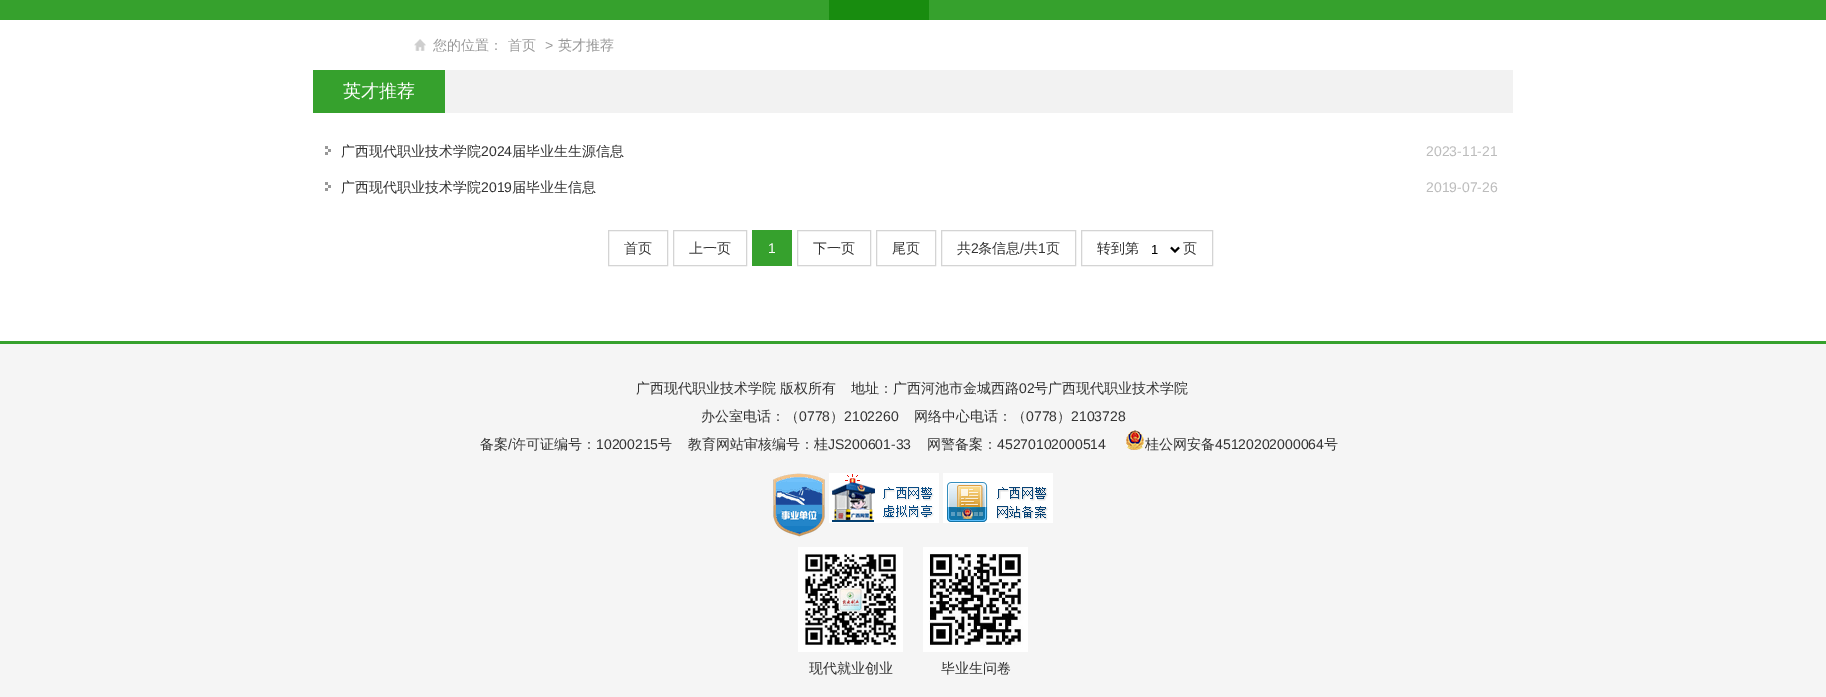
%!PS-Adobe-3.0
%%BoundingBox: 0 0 1826 697
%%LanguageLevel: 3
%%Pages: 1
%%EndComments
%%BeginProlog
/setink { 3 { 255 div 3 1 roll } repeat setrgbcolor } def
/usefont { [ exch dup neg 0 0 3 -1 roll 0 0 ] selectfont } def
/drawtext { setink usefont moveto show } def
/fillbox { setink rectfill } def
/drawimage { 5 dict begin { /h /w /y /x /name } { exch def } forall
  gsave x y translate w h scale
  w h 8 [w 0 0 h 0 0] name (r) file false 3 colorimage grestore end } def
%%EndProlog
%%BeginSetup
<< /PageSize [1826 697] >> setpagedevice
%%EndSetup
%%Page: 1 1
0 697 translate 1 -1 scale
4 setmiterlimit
0 0 1826 697 255 255 255 fillbox
0 0 1826 20 54 161 45 fillbox
829 0 100 20 24 140 15 fillbox
(assets/img1.rgb) 414 39 12 12 drawimage
(您的位置：) 433 50 /WenQuanYiZenHei-Medium 14 153 153 153 drawtext
(首页) 508 50 /WenQuanYiZenHei-Medium 14 153 153 153 drawtext
(>) 545 50 /LiberationSans-Regular 14 153 153 153 drawtext
(英才推荐) 558 50 /WenQuanYiZenHei-Medium 14 153 153 153 drawtext
445 70 1068 43 242 242 242 fillbox
313 70 132 43 54 161 45 fillbox
(英才推荐) 343 97 /WenQuanYiZenHei-Medium 18 255 255 255 drawtext
(assets/img2.rgb) 325 146 6 9 drawimage
(广西现代职业技术学院) 341 156 /WenQuanYiZenHei-Medium 14 51 51 51 drawtext
(2024) 481 156 /LiberationSans-Regular 14 51 51 51 drawtext
(届毕业生生源信息) 512 156 /WenQuanYiZenHei-Medium 14 51 51 51 drawtext
(2023-11-21) 1426 156 /LiberationSans-Regular 14 188 188 188 drawtext
(assets/img2.rgb) 325 182 6 9 drawimage
(广西现代职业技术学院) 341 192 /WenQuanYiZenHei-Medium 14 51 51 51 drawtext
(2019) 481 192 /LiberationSans-Regular 14 51 51 51 drawtext
(届毕业生信息) 512 192 /WenQuanYiZenHei-Medium 14 51 51 51 drawtext
(2019-07-26) 1426 192 /LiberationSans-Regular 14 188 188 188 drawtext
212 212 212 setink
608.5 230.5 59 35 rectstroke
(首页) 624 253 /WenQuanYiZenHei-Medium 14 51 51 51 drawtext
212 212 212 setink
673.5 230.5 73 35 rectstroke
(上一页) 689 253 /WenQuanYiZenHei-Medium 14 51 51 51 drawtext
752 230 40 36 54 161 45 fillbox
(1) 768 253 /LiberationSans-Regular 14 255 255 255 drawtext
212 212 212 setink
797.5 230.5 73 35 rectstroke
(下一页) 813 253 /WenQuanYiZenHei-Medium 14 51 51 51 drawtext
212 212 212 setink
876.5 230.5 59 35 rectstroke
(尾页) 892 253 /WenQuanYiZenHei-Medium 14 51 51 51 drawtext
212 212 212 setink
941.5 230.5 134 35 rectstroke
(共) 957 253 /WenQuanYiZenHei-Medium 14 51 51 51 drawtext
(2) 971 253 /LiberationSans-Regular 14 51 51 51 drawtext
(条信息) 978 253 /WenQuanYiZenHei-Medium 14 51 51 51 drawtext
(/) 1020 253 /LiberationSans-Regular 14 51 51 51 drawtext
(共) 1024 253 /WenQuanYiZenHei-Medium 14 51 51 51 drawtext
(1) 1038 253 /LiberationSans-Regular 14 51 51 51 drawtext
(页) 1046 253 /WenQuanYiZenHei-Medium 14 51 51 51 drawtext
212 212 212 setink
1081.5 230.5 131 35 rectstroke
(转到第) 1097 253 /WenQuanYiZenHei-Medium 14 51 51 51 drawtext
0 0 0 setink
2 setlinewidth
1171 247.5 moveto 1175 251.5 lineto 1179 247.5 lineto stroke
(1) 1151 254 /LiberationSans-Regular 13 0 0 0 drawtext
(页) 1183 253 /WenQuanYiZenHei-Medium 14 51 51 51 drawtext
0 344 1826 353 245 245 245 fillbox
0 341 1826 3 54 161 45 fillbox
(广西现代职业技术学院 版权所有) 636 393 /WenQuanYiZenHei-Medium 14 51 51 51 drawtext
(地址：广西河池市金城西路) 851 393 /WenQuanYiZenHei-Medium 14 51 51 51 drawtext
(02) 1019 393 /LiberationSans-Regular 14 51 51 51 drawtext
(号广西现代职业技术学院) 1034 393 /WenQuanYiZenHei-Medium 14 51 51 51 drawtext
(办公室电话：（) 701 421 /WenQuanYiZenHei-Medium 14 51 51 51 drawtext
(0778) 799 421 /LiberationSans-Regular 14 51 51 51 drawtext
(）) 830 421 /WenQuanYiZenHei-Medium 14 51 51 51 drawtext
(2102260) 844 421 /LiberationSans-Regular 14 51 51 51 drawtext
(网络中心电话：（) 914 421 /WenQuanYiZenHei-Medium 14 51 51 51 drawtext
(0778) 1026 421 /LiberationSans-Regular 14 51 51 51 drawtext
(）) 1057 421 /WenQuanYiZenHei-Medium 14 51 51 51 drawtext
(2103728) 1071 421 /LiberationSans-Regular 14 51 51 51 drawtext
(备案) 480 449 /WenQuanYiZenHei-Medium 14 51 51 51 drawtext
(/) 508 449 /LiberationSans-Regular 14 51 51 51 drawtext
(许可证编号：) 512 449 /WenQuanYiZenHei-Medium 14 51 51 51 drawtext
(10200215) 596 449 /LiberationSans-Regular 14 51 51 51 drawtext
(号) 658 449 /WenQuanYiZenHei-Medium 14 51 51 51 drawtext
(教育网站审核编号：桂) 688 449 /WenQuanYiZenHei-Medium 14 51 51 51 drawtext
(JS200601-33) 828 449 /LiberationSans-Regular 14 51 51 51 drawtext
(网警备案：) 927 449 /WenQuanYiZenHei-Medium 14 51 51 51 drawtext
(45270102000514) 997 449 /LiberationSans-Regular 14 51 51 51 drawtext
(assets/img3.rgb) 1126 430 18 20 drawimage
(桂公网安备) 1145 449 /WenQuanYiZenHei-Medium 14 51 51 51 drawtext
(45120202000064) 1215 449 /LiberationSans-Regular 14 51 51 51 drawtext
(号) 1324 449 /WenQuanYiZenHei-Medium 14 51 51 51 drawtext
(assets/img4.rgb) 773 473 52 64 drawimage
(assets/img5.rgb) 829 473 110 50 drawimage
(assets/img6.rgb) 943 473 110 50 drawimage
(assets/img7.rgb) 798 547 105 105 drawimage
(现代就业创业) 809 673 /WenQuanYiZenHei-Medium 14 51 51 51 drawtext
(assets/img8.rgb) 923 547 105 105 drawimage
(毕业生问卷) 941 673 /WenQuanYiZenHei-Medium 14 51 51 51 drawtext
showpage
%%EOF
